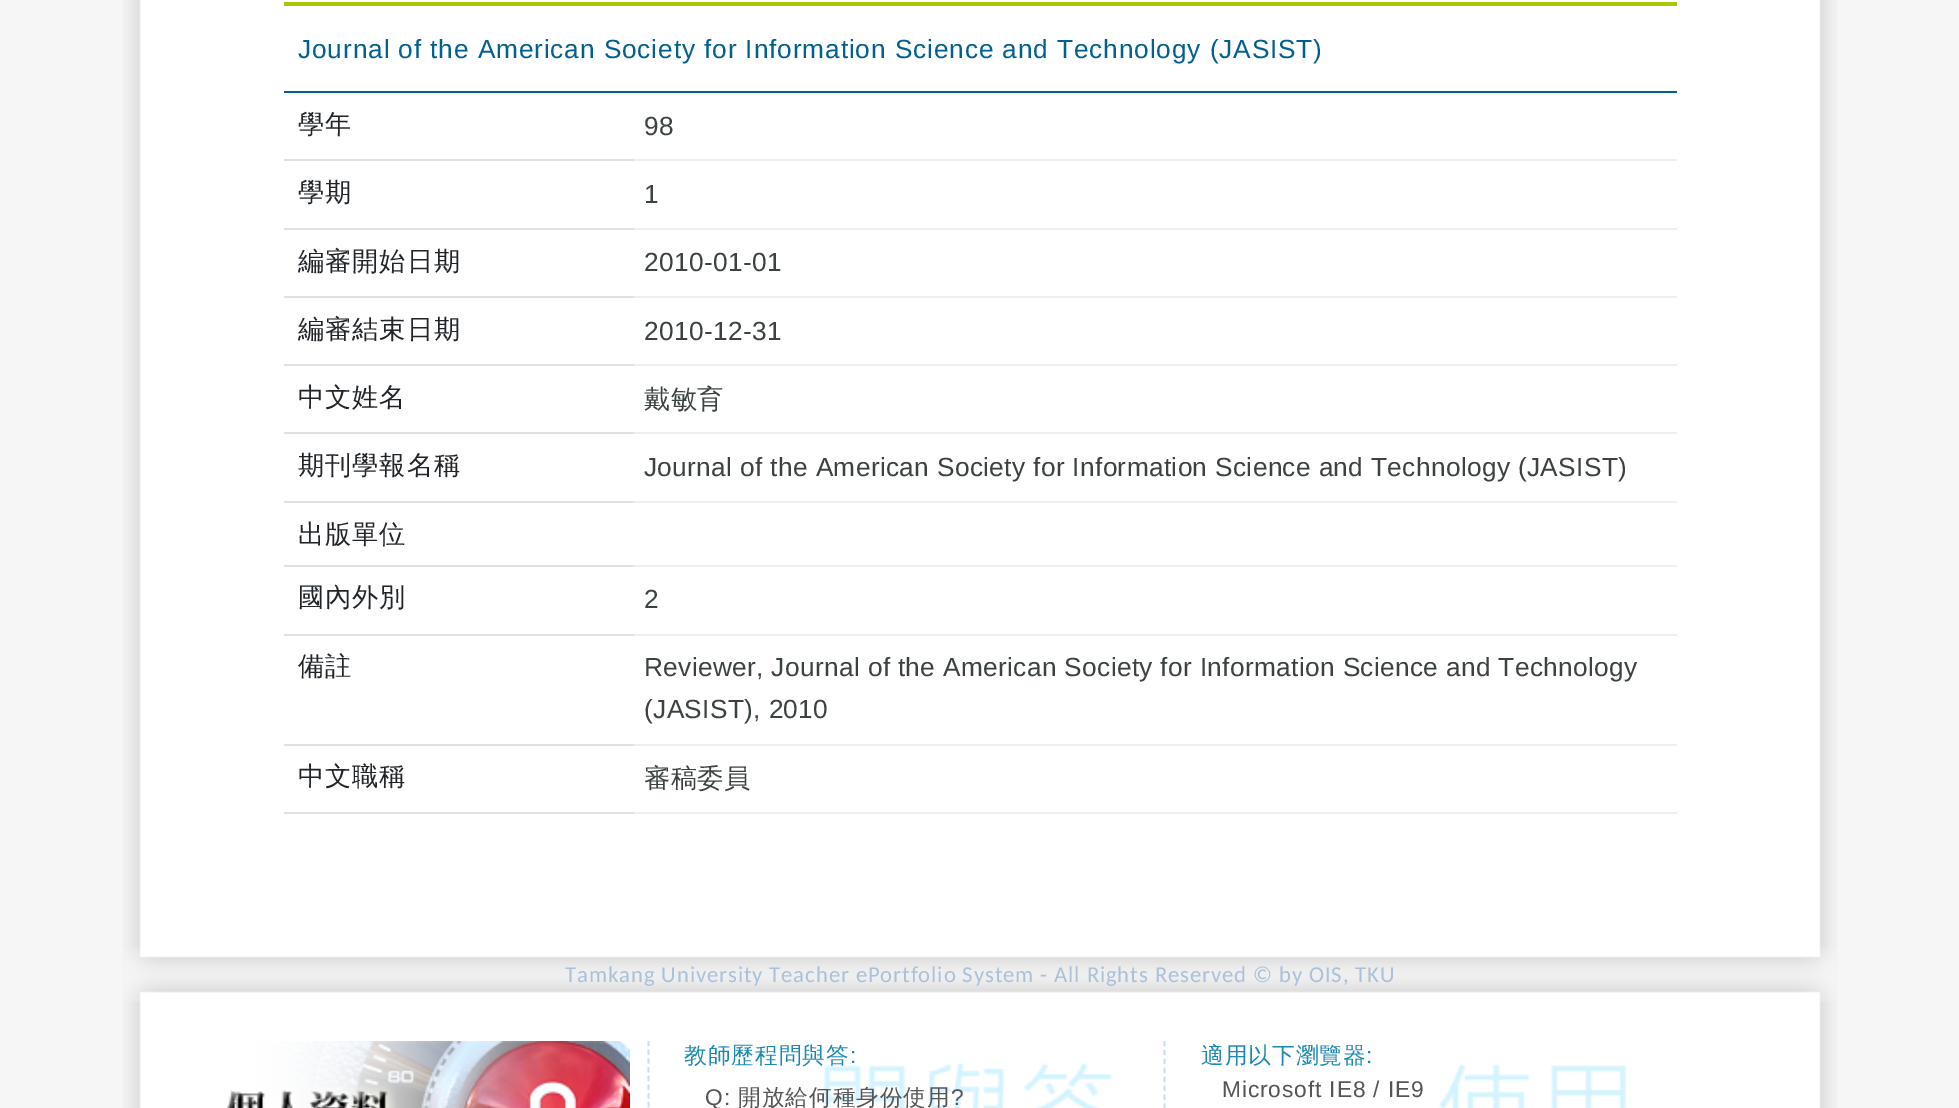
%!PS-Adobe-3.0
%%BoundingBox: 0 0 1959 1108
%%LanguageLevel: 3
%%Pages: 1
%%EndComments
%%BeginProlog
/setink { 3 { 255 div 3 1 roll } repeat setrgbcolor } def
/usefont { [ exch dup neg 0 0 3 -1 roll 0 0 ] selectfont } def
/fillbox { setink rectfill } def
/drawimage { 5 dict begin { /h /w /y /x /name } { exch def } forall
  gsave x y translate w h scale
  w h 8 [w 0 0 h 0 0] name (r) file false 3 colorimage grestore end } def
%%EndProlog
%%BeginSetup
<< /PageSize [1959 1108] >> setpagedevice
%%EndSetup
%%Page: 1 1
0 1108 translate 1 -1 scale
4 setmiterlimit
0 0 1959 1108 246 246 246 fillbox
(assets/img1.rgb) 123 0 1714 974 drawimage
284 91 1393 2 0 96 144 fillbox
284 2 1393 4 171 197 7 fillbox
/LiberationSans-Regular 26.25 usefont
0 96 144 setink
298 58 moveto 0.88 0 (Journal of the American Society for Information Science and Technology \(JASIST\)) ashow
632 159 1045 2 239 239 239 fillbox
284 159 350 2 222 226 230 fillbox
/WenQuanYiZenHei-Medium 26.25 usefont
33 37 41 setink
298 133 moveto 0.88 0 (學年) ashow
/LiberationSans-Regular 26.25 usefont
60 66 66 setink
644 135 moveto 0.35 0 (98) ashow
632 228 1045 2 239 239 239 fillbox
284 228 350 2 222 226 230 fillbox
/WenQuanYiZenHei-Medium 26.25 usefont
33 37 41 setink
298 201 moveto 0.88 0 (學期) ashow
/LiberationSans-Regular 26.25 usefont
60 66 66 setink
644 203 moveto 0.35 0 (1) ashow
632 296 1045 2 239 239 239 fillbox
284 296 350 2 222 226 230 fillbox
/WenQuanYiZenHei-Medium 26.25 usefont
33 37 41 setink
298 270 moveto 0.88 0 (編審開始日期) ashow
/LiberationSans-Regular 26.25 usefont
60 66 66 setink
644 271 moveto 0.35 0 (2010-01-01) ashow
632 364 1045 2 239 239 239 fillbox
284 364 350 2 222 226 230 fillbox
/WenQuanYiZenHei-Medium 26.25 usefont
33 37 41 setink
298 338 moveto 0.88 0 (編審結束日期) ashow
/LiberationSans-Regular 26.25 usefont
60 66 66 setink
644 340 moveto 0.35 0 (2010-12-31) ashow
632 432 1045 2 239 239 239 fillbox
284 432 350 2 222 226 230 fillbox
/WenQuanYiZenHei-Medium 26.25 usefont
33 37 41 setink
298 406 moveto 0.88 0 (中文姓名) ashow
60 66 66 setink
644 408 moveto 0.35 0 (戴敏育) ashow
632 501 1045 2 239 239 239 fillbox
284 501 350 2 222 226 230 fillbox
33 37 41 setink
298 474 moveto 0.88 0 (期刊學報名稱) ashow
/LiberationSans-Regular 26.25 usefont
60 66 66 setink
644 476 moveto 0.35 0 (Journal of the American Society for Information Science and Technology \(JASIST\)) ashow
632 565 1045 2 239 239 239 fillbox
284 565 350 2 222 226 230 fillbox
/WenQuanYiZenHei-Medium 26.25 usefont
33 37 41 setink
298 543 moveto 0.88 0 (出版單位) ashow
632 634 1045 2 239 239 239 fillbox
284 634 350 2 222 226 230 fillbox
33 37 41 setink
298 606 moveto 0.88 0 (國內外別) ashow
/LiberationSans-Regular 26.25 usefont
60 66 66 setink
644 608 moveto 0.35 0 (2) ashow
632 744 1045 2 239 239 239 fillbox
284 744 350 2 222 226 230 fillbox
/WenQuanYiZenHei-Medium 26.25 usefont
33 37 41 setink
298 675 moveto 0.88 0 (備註) ashow
/LiberationSans-Regular 26.25 usefont
60 66 66 setink
644 676 moveto 0.35 0 (Reviewer, Journal of the American Society for Information Science and Technology) ashow
644 718 moveto 0.35 0 (\(JASIST\), 2010) ashow
632 812 1045 2 239 239 239 fillbox
284 812 350 2 222 226 230 fillbox
/WenQuanYiZenHei-Medium 26.25 usefont
33 37 41 setink
298 785 moveto 0.88 0 (中文職稱) ashow
60 66 66 setink
644 787 moveto 0.35 0 (審稿委員) ashow
(assets/img2.rgb) 123 974 1714 134 drawimage
(assets/img3.rgb) 124 947 1712 55 drawimage
/Carlito-Regular 22.75 usefont
171 193 218 setink
565 982 moveto 0.88 0 (Tamkang University Teacher ePortfolio System - All Rights Reserved © by OIS, TKU) ashow
(assets/img4.rgb) 227 1041 403 67 drawimage
(assets/img5.rgb) 824 1063 288 45 drawimage
195 227 238 setink
1.8 setlinewidth
[5.25 3.46] 0 setdash
648.5 1041 moveto 648.5 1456 lineto stroke
/WenQuanYiZenHei-Medium 22.75 usefont
28 138 176 setink
684 1063 moveto 0.88 0 (教師歷程問與答) ashow
/LiberationSans-Regular 22.75 usefont
850 1063 moveto 0.88 0 (:) ashow
85 85 85 setink
705 1105 moveto 0.88 0 (Q:) ashow
/WenQuanYiZenHei-Medium 22.75 usefont
738 1105 moveto 0.88 0 (開放給何種身份使用) ashow
/LiberationSans-Regular 22.75 usefont
951 1105 moveto 0.88 0 (?) ashow
(assets/img6.rgb) 1438 1063 189 45 drawimage
195 227 238 setink
[5.25 3.69] 0 setdash
1164.5 1041 moveto 1164.5 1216 lineto stroke
/WenQuanYiZenHei-Medium 22.75 usefont
28 138 176 setink
1201 1063 moveto 0.88 0 (適用以下瀏覽器) ashow
/LiberationSans-Regular 22.75 usefont
1366 1063 moveto 0.88 0 (:) ashow
85 85 85 setink
1222 1097 moveto 0.88 0 (Microsoft IE8 / IE9) ashow
showpage
%%EOF
